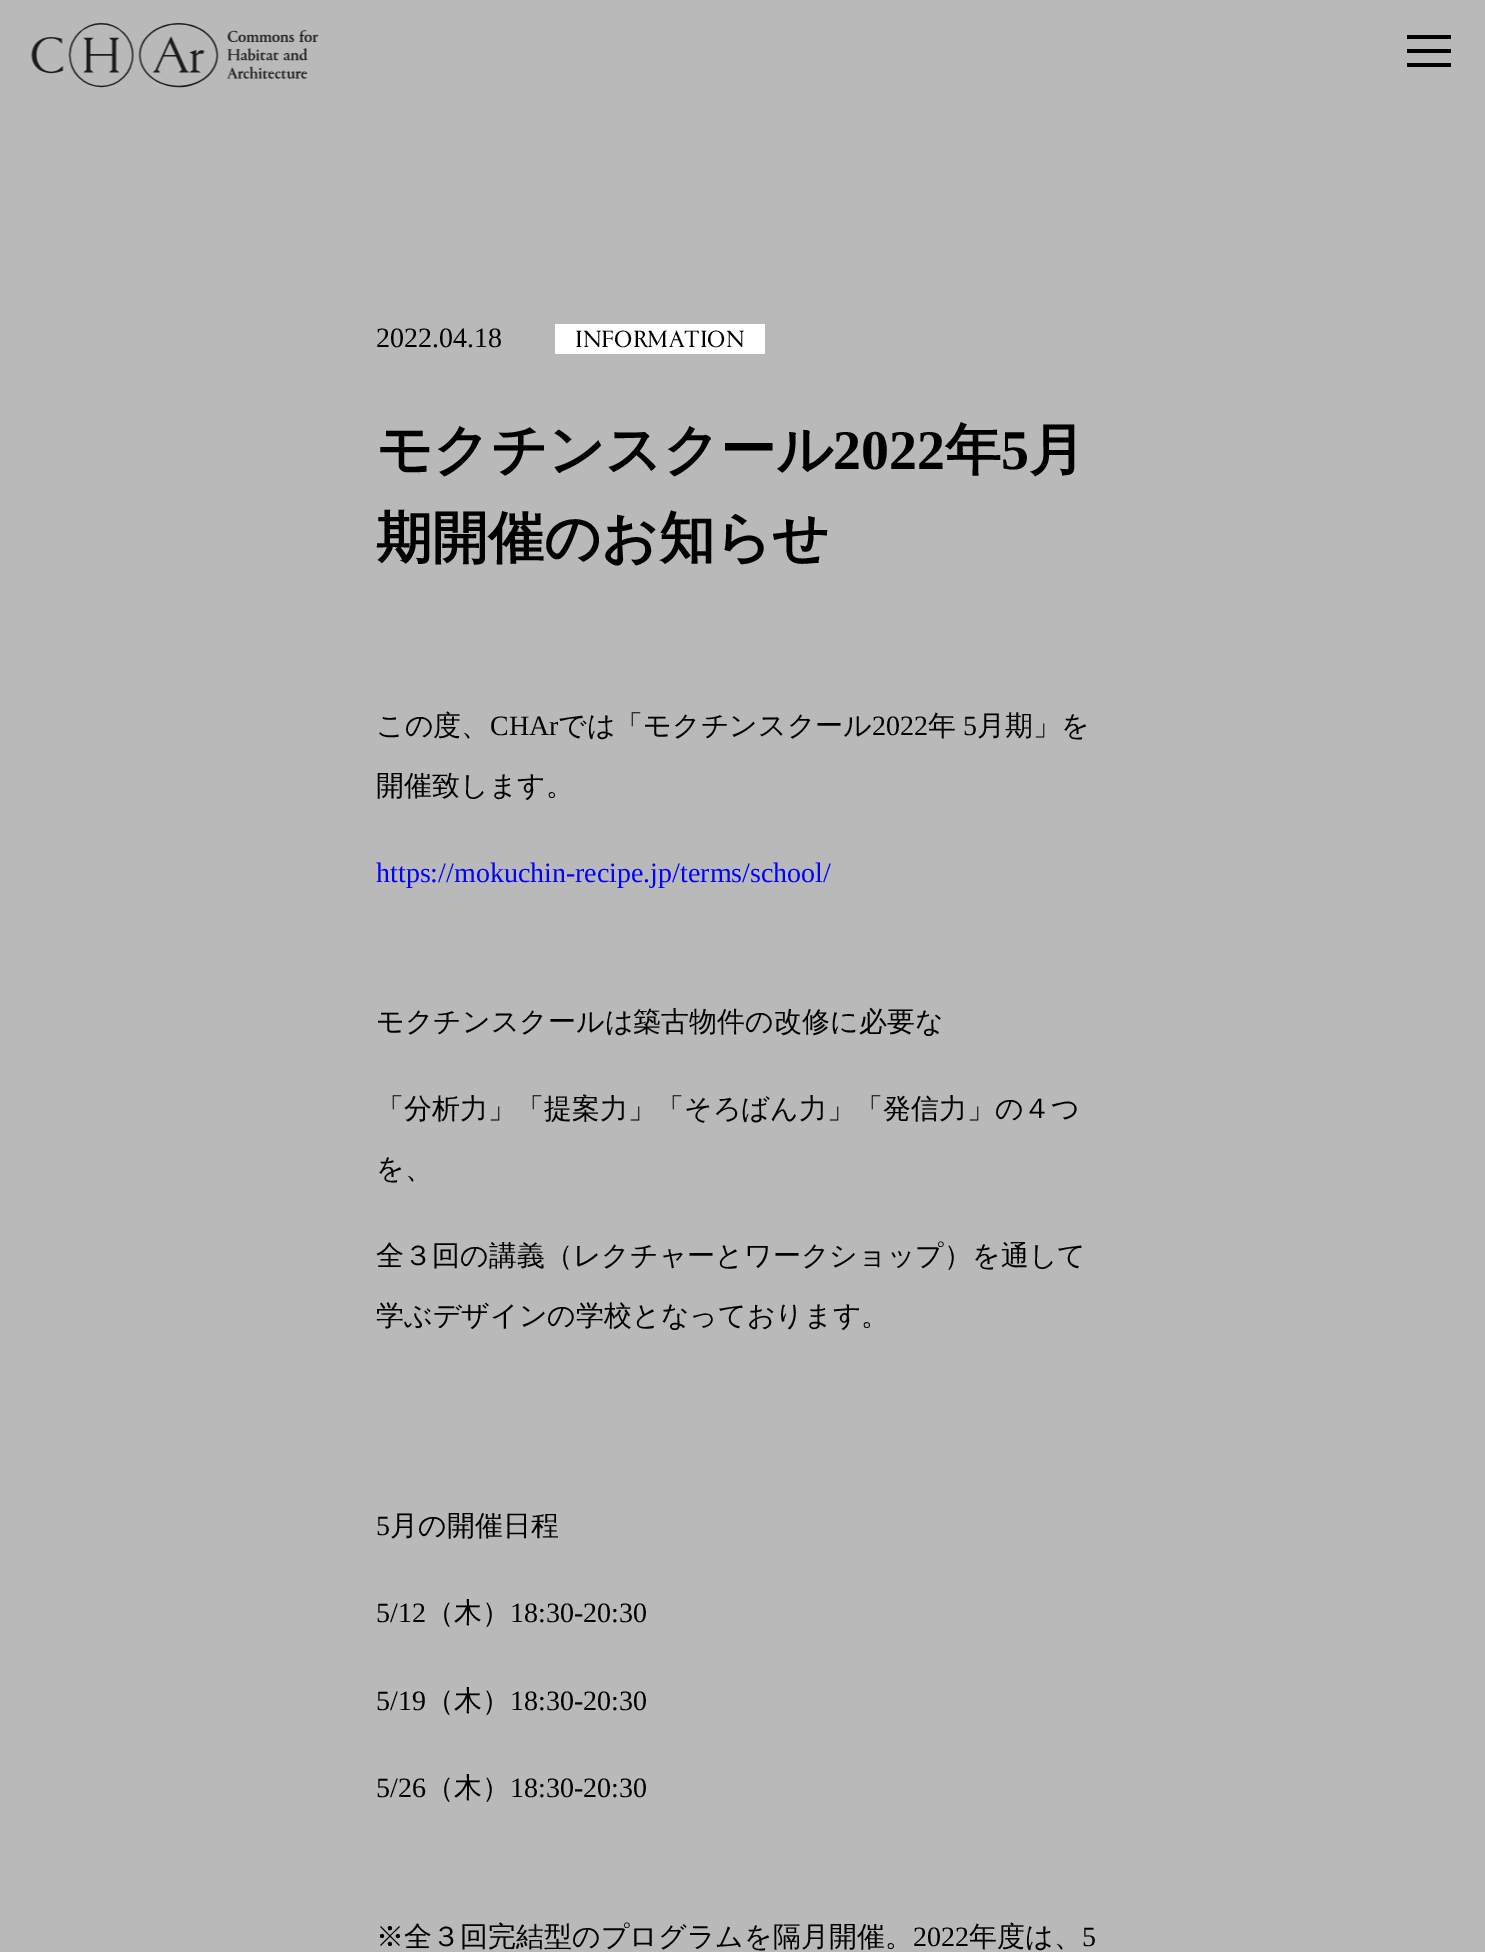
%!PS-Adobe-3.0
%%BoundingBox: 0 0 1485 1952
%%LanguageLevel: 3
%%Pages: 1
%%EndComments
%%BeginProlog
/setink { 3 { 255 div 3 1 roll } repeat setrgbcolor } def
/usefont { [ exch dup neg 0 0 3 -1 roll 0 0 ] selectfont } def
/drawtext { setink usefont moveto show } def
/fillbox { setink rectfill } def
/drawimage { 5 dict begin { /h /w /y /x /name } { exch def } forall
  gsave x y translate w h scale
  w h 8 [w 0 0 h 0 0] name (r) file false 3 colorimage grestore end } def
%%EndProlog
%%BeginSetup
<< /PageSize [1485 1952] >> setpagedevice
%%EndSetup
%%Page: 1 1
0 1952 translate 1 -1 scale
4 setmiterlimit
0 0 1485 1952 185 185 185 fillbox
(assets/img1.rgb) 31 23 288 65 drawimage
1407 35 44 4 0 0 0 fillbox
1407 49 44 4 0 0 0 fillbox
1407 63 44 4 0 0 0 fillbox
(2022.04.18) 376 347 /LiberationSerif-Regular 28 0 0 0 drawtext
555 324 210 30 255 255 255 fillbox
(INFORMATION) 575 347 /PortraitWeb-Regular 24.5 0 0 0 drawtext
(モクチンスクール) 376 469 /WenQuanYiZenHei-Bold 56 0 0 0 drawtext
(2022) 833 469 /LiberationSerif-Bold 56 0 0 0 drawtext
(年) 945 469 /WenQuanYiZenHei-Bold 56 0 0 0 drawtext
(5) 1001 469 /LiberationSerif-Bold 56 0 0 0 drawtext
(月) 1029 469 /WenQuanYiZenHei-Bold 56 0 0 0 drawtext
(期開催のお知らせ) 376 557 /WenQuanYiZenHei-Bold 56 0 0 0 drawtext
(この度、) 376 735 /WenQuanYiZenHei-Medium 28 0 0 0 drawtext
(CHAr) 490 735 /LiberationSerif-Regular 28 0 0 0 drawtext
(では「モクチンスクール) 558 735 /WenQuanYiZenHei-Medium 28 0 0 0 drawtext
(2022) 872 735 /LiberationSerif-Regular 28 0 0 0 drawtext
(年) 928 735 /WenQuanYiZenHei-Medium 28 0 0 0 drawtext
(5) 963 735 /LiberationSerif-Regular 28 0 0 0 drawtext
(月期」を) 977 735 /WenQuanYiZenHei-Medium 28 0 0 0 drawtext
(開催致します。) 376 795 /WenQuanYiZenHei-Medium 28 0 0 0 drawtext
(https://mokuchin-recipe.jp/terms/school/) 376 882 /LiberationSerif-Regular 28 0 0 255 drawtext
(モクチンスクールは築古物件の改修に必要な) 376 1031 /WenQuanYiZenHei-Medium 28 0 0 0 drawtext
(「分析力」「提案力」「そろばん力」「発信力」の４つ) 376 1118 /WenQuanYiZenHei-Medium 28 0 0 0 drawtext
(を、) 376 1178 /WenQuanYiZenHei-Medium 28 0 0 0 drawtext
(全３回の講義（レクチャーとワークショップ）を通して) 376 1265 /WenQuanYiZenHei-Medium 28 0 0 0 drawtext
(学ぶデザインの学校となっております。) 376 1325 /WenQuanYiZenHei-Medium 28 0 0 0 drawtext
(5) 376 1535 /LiberationSerif-Regular 28 0 0 0 drawtext
(月の開催日程) 390 1535 /WenQuanYiZenHei-Medium 28 0 0 0 drawtext
(5/12) 376 1622 /LiberationSerif-Regular 28 0 0 0 drawtext
(（木）) 426 1622 /WenQuanYiZenHei-Medium 28 0 0 0 drawtext
(18:30-20:30) 510 1622 /LiberationSerif-Regular 28 0 0 0 drawtext
(5/19) 376 1710 /LiberationSerif-Regular 28 0 0 0 drawtext
(（木）) 426 1710 /WenQuanYiZenHei-Medium 28 0 0 0 drawtext
(18:30-20:30) 510 1710 /LiberationSerif-Regular 28 0 0 0 drawtext
(5/26) 376 1797 /LiberationSerif-Regular 28 0 0 0 drawtext
(（木）) 426 1797 /WenQuanYiZenHei-Medium 28 0 0 0 drawtext
(18:30-20:30) 510 1797 /LiberationSerif-Regular 28 0 0 0 drawtext
(※全３回完結型のプログラムを隔月開催。) 376 1946 /WenQuanYiZenHei-Medium 28 0 0 0 drawtext
(2022) 913 1946 /LiberationSerif-Regular 28 0 0 0 drawtext
(年度は、) 969 1946 /WenQuanYiZenHei-Medium 28 0 0 0 drawtext
(5) 1082 1946 /LiberationSerif-Regular 28 0 0 0 drawtext
showpage
%%EOF
